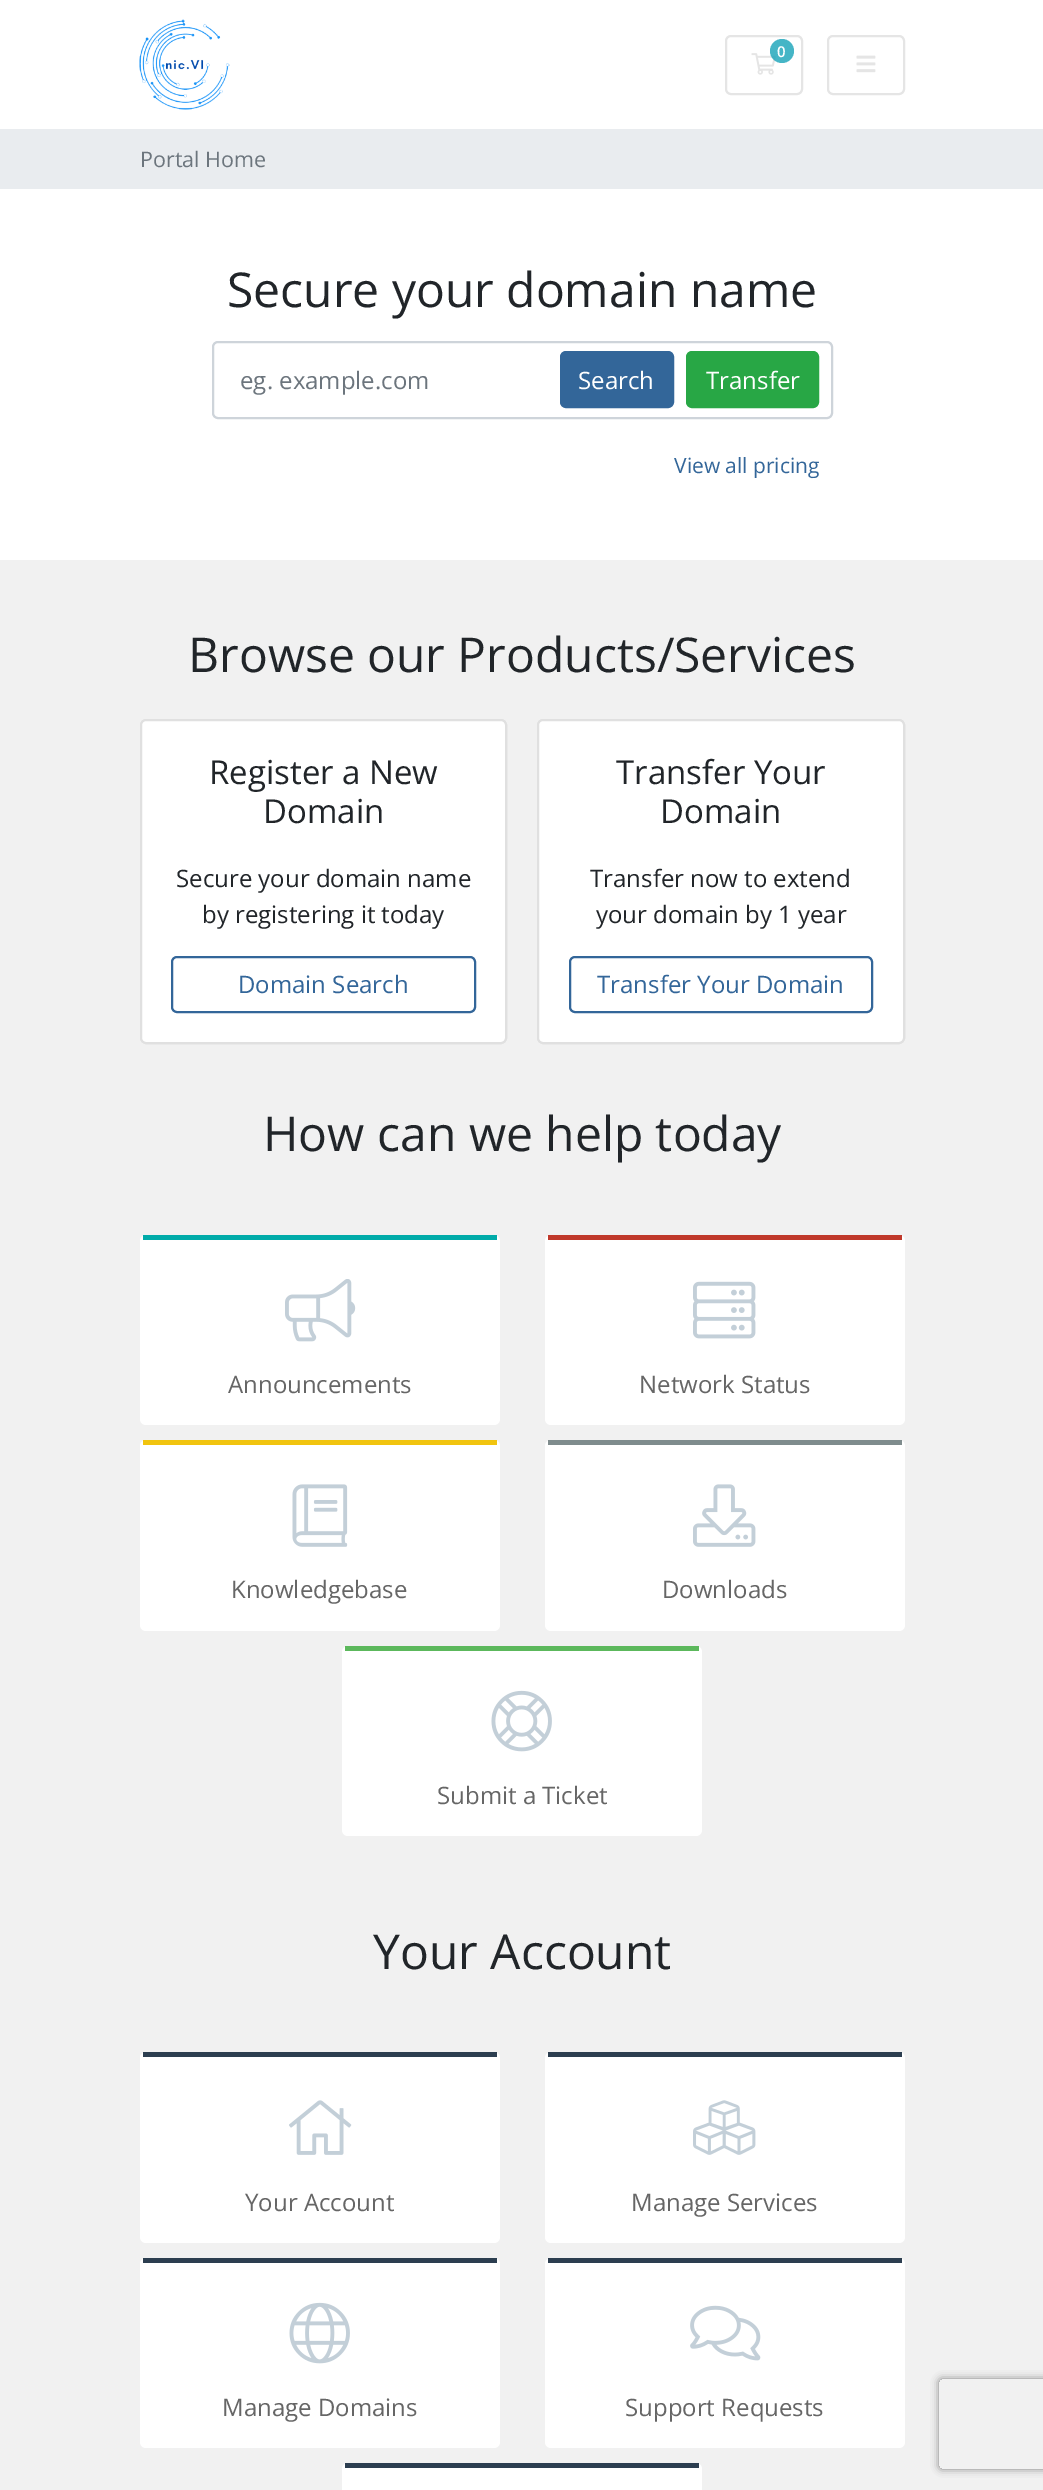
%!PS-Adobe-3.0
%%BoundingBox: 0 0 1043 2490
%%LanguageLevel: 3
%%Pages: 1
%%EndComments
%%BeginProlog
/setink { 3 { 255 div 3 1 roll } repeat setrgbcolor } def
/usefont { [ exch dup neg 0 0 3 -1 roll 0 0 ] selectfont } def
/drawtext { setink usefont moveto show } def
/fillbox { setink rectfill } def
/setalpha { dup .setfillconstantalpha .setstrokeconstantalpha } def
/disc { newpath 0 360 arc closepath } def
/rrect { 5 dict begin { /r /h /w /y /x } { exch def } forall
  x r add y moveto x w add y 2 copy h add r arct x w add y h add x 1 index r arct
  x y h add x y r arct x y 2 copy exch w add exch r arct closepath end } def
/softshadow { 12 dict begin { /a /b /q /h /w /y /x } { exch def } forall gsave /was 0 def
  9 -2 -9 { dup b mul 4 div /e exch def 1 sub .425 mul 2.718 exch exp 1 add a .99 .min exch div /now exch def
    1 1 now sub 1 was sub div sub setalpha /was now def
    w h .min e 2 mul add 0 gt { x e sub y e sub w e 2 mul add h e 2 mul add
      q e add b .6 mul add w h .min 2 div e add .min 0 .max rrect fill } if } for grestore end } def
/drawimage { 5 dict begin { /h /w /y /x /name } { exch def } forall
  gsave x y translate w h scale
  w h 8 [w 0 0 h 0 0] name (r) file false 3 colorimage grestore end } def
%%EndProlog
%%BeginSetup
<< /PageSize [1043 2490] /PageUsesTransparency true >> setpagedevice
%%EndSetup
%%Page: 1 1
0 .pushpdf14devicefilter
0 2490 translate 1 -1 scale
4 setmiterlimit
0 0 1043 2490 241 241 241 fillbox
0 0 1043 129 255 255 255 fillbox
(assets/img1.rgb) 139 19 91 91 drawimage
229 229 229 setink
2 setlinewidth
726 36 76 58 5 rrect stroke
(assets/img2.rgb) 751 53 25 22 drawimage
0.8 setalpha
23 162 184 setink
782 51 12 disc fill
1 setalpha
(0) 777 57 /OpenSans-SemiBold 15 255 255 255 drawtext
229 229 229 setink
828 36 76 58 5 rrect stroke
(assets/img3.rgb) 856 55 20 18 drawimage
0 129 1043 60 233 236 239 fillbox
(Portal Home) 140 167 /OpenSans-Regular 21.5 108 117 125 drawtext
0 189 1043 371 255 255 255 fillbox
(Secure your domain name) 227 307 /OpenSans-Regular 48 33 37 41 drawtext
206 212 218 setink
213 342 619 76 5 rrect stroke
(eg. example.com) 240 389 /OpenSans-Regular 24 108 117 125 drawtext
51 102 153 setink
561 352 112 55 5 rrect gsave fill grestore
stroke
(Search) 578 389 /OpenSans-Regular 24 255 255 255 drawtext
40 167 69 setink
687 352 131 55 5 rrect gsave fill grestore
stroke
(Transfer) 706 389 /OpenSans-Regular 24 255 255 255 drawtext
(View all pricing) 674 473 /OpenSans-Regular 21 51 102 153 drawtext
gsave
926 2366 moveto 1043 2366 lineto 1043 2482 lineto 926 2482 lineto closepath 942 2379 moveto 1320 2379 lineto 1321.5 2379 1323 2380.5 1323 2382 curveto 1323 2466 lineto 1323 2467.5 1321.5 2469 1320 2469 curveto 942 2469 lineto 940.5 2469 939 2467.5 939 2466 curveto 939 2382 lineto 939 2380.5 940.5 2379 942 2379 curveto closepath eoclip newpath
128 128 128 setink
939 2379 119 90 3 4 1 softshadow
grestore
(Browse our Products/Services) 188 672 /OpenSans-Regular 48 33 37 41 drawtext
255 255 255 setink
140 719 367 325 6 rrect fill
0.12 setalpha
0 0 0 setink
141 720 365 323 5 rrect stroke
1 setalpha
(Register a New) 209 784 /OpenSans-Regular 33 33 37 41 drawtext
(Domain) 263 823 /OpenSans-Regular 33 33 37 41 drawtext
(Secure your domain name) 176 887 /OpenSans-Regular 24 33 37 41 drawtext
(by registering it today) 202 923 /OpenSans-Regular 24 33 37 41 drawtext
51 102 153 setink
172 957 303 55 5 rrect stroke
(Domain Search) 238 993 /OpenSans-Regular 24 51 102 153 drawtext
255 255 255 setink
537 719 368 325 6 rrect fill
0.12 setalpha
0 0 0 setink
538 720 366 323 5 rrect stroke
1 setalpha
(Transfer Your) 616 784 /OpenSans-Regular 33 33 37 41 drawtext
(Domain) 660 823 /OpenSans-Regular 33 33 37 41 drawtext
(Transfer now to extend) 590 887 /OpenSans-Regular 24 33 37 41 drawtext
(your domain by 1 year) 596 923 /OpenSans-Regular 24 33 37 41 drawtext
51 102 153 setink
570 957 302 55 5 rrect stroke
(Transfer Your Domain) 597 993 /OpenSans-Regular 24 51 102 153 drawtext
(How can we help today) 263 1151 /OpenSans-Regular 48 33 37 41 drawtext
255 255 255 setink
140 1235 360 190 6 rrect fill
143 1235 354 5 0 171 169 fillbox
(assets/img4.rgb) 285 1279 71 63 drawimage
(Announcements) 228 1393 /OpenSans-Regular 24 102 102 102 drawtext
255 255 255 setink
545 1235 360 190 6 rrect fill
548 1235 354 5 192 57 43 fillbox
(assets/img5.rgb) 693 1281 63 58 drawimage
(Network Status) 639 1393 /OpenSans-Regular 24 102 102 102 drawtext
255 255 255 setink
140 1440 360 191 6 rrect fill
143 1440 354 5 241 196 15 fillbox
(assets/img6.rgb) 292 1484 56 63 drawimage
(Knowledgebase) 231 1598 /OpenSans-Regular 24 102 102 102 drawtext
255 255 255 setink
545 1440 360 191 6 rrect fill
548 1440 354 5 127 140 141 fillbox
(assets/img7.rgb) 693 1484 63 63 drawimage
(Downloads) 662 1598 /OpenSans-Regular 24 102 102 102 drawtext
255 255 255 setink
342 1646 360 190 6 rrect fill
345 1646 354 5 92 184 92 fillbox
(assets/img8.rgb) 491 1690 61 62 drawimage
(Submit a Ticket) 437 1804 /OpenSans-Regular 24 102 102 102 drawtext
(Your Account) 373 1969 /OpenSans-Regular 48 33 37 41 drawtext
255 255 255 setink
140 2052 360 191 6 rrect fill
143 2052 354 5 44 62 80 fillbox
(assets/img9.rgb) 289 2100 63 55 drawimage
(Your Account) 245 2211 /OpenSans-Regular 24 102 102 102 drawtext
255 255 255 setink
545 2052 360 191 6 rrect fill
548 2052 354 5 44 62 80 fillbox
(assets/img10.rgb) 693 2100 63 55 drawimage
(Manage Services) 631 2211 /OpenSans-Regular 24 102 102 102 drawtext
255 255 255 setink
140 2258 360 190 6 rrect fill
143 2258 354 5 44 62 80 fillbox
(assets/img11.rgb) 289 2302 61 62 drawimage
(Manage Domains) 222 2416 /OpenSans-Regular 24 102 102 102 drawtext
255 255 255 setink
545 2258 360 190 6 rrect fill
548 2258 354 5 44 62 80 fillbox
(assets/img12.rgb) 690 2305 71 56 drawimage
(Support Requests) 625 2416 /OpenSans-Regular 24 102 102 102 drawtext
255 255 255 setink
342 2463 360 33 6 rrect fill
345 2463 354 5 44 62 80 fillbox
.poppdf14devicefilter showpage
%%EOF
